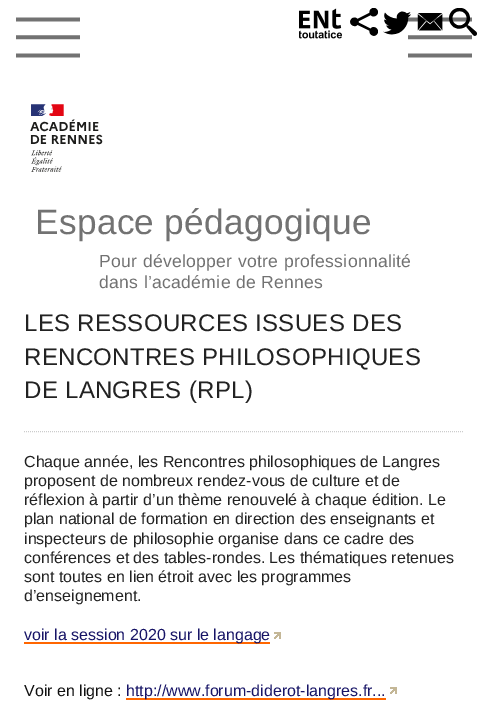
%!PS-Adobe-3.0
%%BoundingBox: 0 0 488 706
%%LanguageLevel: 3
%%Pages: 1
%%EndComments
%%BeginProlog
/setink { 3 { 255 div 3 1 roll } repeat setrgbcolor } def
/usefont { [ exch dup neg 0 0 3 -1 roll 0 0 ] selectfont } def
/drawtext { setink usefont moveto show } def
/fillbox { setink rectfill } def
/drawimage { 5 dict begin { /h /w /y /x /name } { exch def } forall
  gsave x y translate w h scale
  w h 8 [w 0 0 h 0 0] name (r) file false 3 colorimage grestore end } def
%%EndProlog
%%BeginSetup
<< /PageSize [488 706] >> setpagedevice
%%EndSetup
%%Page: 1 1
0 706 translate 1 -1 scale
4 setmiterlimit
0 0 488 706 255 255 255 fillbox
(assets/img1.rgb) 299 8 43 31 drawimage
(assets/img2.rgb) 350 8 28 28 drawimage
(assets/img6.rgb) 408 17 64 41 drawimage
(assets/img3.rgb) 383 11 28 24 drawimage
(assets/img4.rgb) 417 13 26 18 drawimage
(assets/img5.rgb) 449 8 28 28 drawimage
(assets/img6.rgb) 16 17 64 41 drawimage
(assets/img7.rgb) 30 104 73 68 drawimage
/LiberationSans-Regular 35.25 usefont
114 114 114 setink
35 234 moveto 0.3 0 (Espace pédagogique) ashow
/LiberationSans-Regular 17.6 usefont
99 267 moveto 0.3 0 (Pour développer votre professionnalité) ashow
99 288 moveto 0.3 0 (dans l’académie de Rennes) ashow
/LiberationSans-Regular 24 usefont
34 34 34 setink
24 331 moveto 0.3 0 (LES RESSOURCES ISSUES DES) ashow
24 365 moveto 0.3 0 (RENCONTRES PHILOSOPHIQUES) ashow
24 398 moveto 0.3 0 (DE LANGRES \(RPL\)) ashow
204 204 204 setink
[1 1] 0 setdash
24 431.5 moveto 464 431.5 lineto stroke
(Chaque année, les Rencontres philosophiques de Langres) 24 467 /LiberationSans-Regular 16 34 34 34 drawtext
(proposent de nombreux rendez-vous de culture et de) 24 486 /LiberationSans-Regular 16 34 34 34 drawtext
(réflexion à partir d’un thème renouvelé à chaque édition. Le) 24 505 /LiberationSans-Regular 16 34 34 34 drawtext
(plan national de formation en direction des enseignants et) 24 524 /LiberationSans-Regular 16 34 34 34 drawtext
(inspecteurs de philosophie organise dans ce cadre des) 24 544 /LiberationSans-Regular 16 34 34 34 drawtext
(conférences et des tables-rondes. Les thématiques retenues) 24 563 /LiberationSans-Regular 16 34 34 34 drawtext
(sont toutes en lien étroit avec les programmes) 24 582 /LiberationSans-Regular 16 34 34 34 drawtext
(d’enseignement.) 24 601 /LiberationSans-Regular 16 34 34 34 drawtext
24 642 246 2 255 102 0 fillbox
(voir la session 2020 sur le langage) 24 640 /LiberationSans-Regular 16 23 20 102 drawtext
(assets/img8.rgb) 274 632 7 7 drawimage
(Voir en ligne :) 24 696 /LiberationSans-Regular 16 17 17 17 drawtext
126 698 260 2 255 102 0 fillbox
(http://www.forum-diderot-langres.fr...) 126 696 /LiberationSans-Regular 16 23 20 102 drawtext
(assets/img8.rgb) 390 687 7 7 drawimage
showpage
%%EOF
